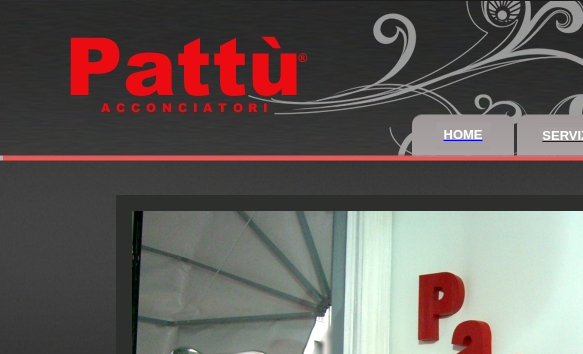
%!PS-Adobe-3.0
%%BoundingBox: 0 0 583 354
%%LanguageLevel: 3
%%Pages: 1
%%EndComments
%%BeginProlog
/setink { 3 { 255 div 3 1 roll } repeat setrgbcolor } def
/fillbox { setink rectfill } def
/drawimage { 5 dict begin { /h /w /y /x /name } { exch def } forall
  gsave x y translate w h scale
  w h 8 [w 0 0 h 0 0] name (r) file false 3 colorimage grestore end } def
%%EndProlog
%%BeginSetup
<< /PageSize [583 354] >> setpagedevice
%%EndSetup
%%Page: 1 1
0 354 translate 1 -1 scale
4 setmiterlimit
0 0 583 354 255 255 255 fillbox
(assets/img1.rgb) 0 0 583 354 drawimage
(assets/img2.rgb) 2 1 581 160 drawimage
(assets/img3.rgb) 116 195 467 159 drawimage
showpage
%%EOF
